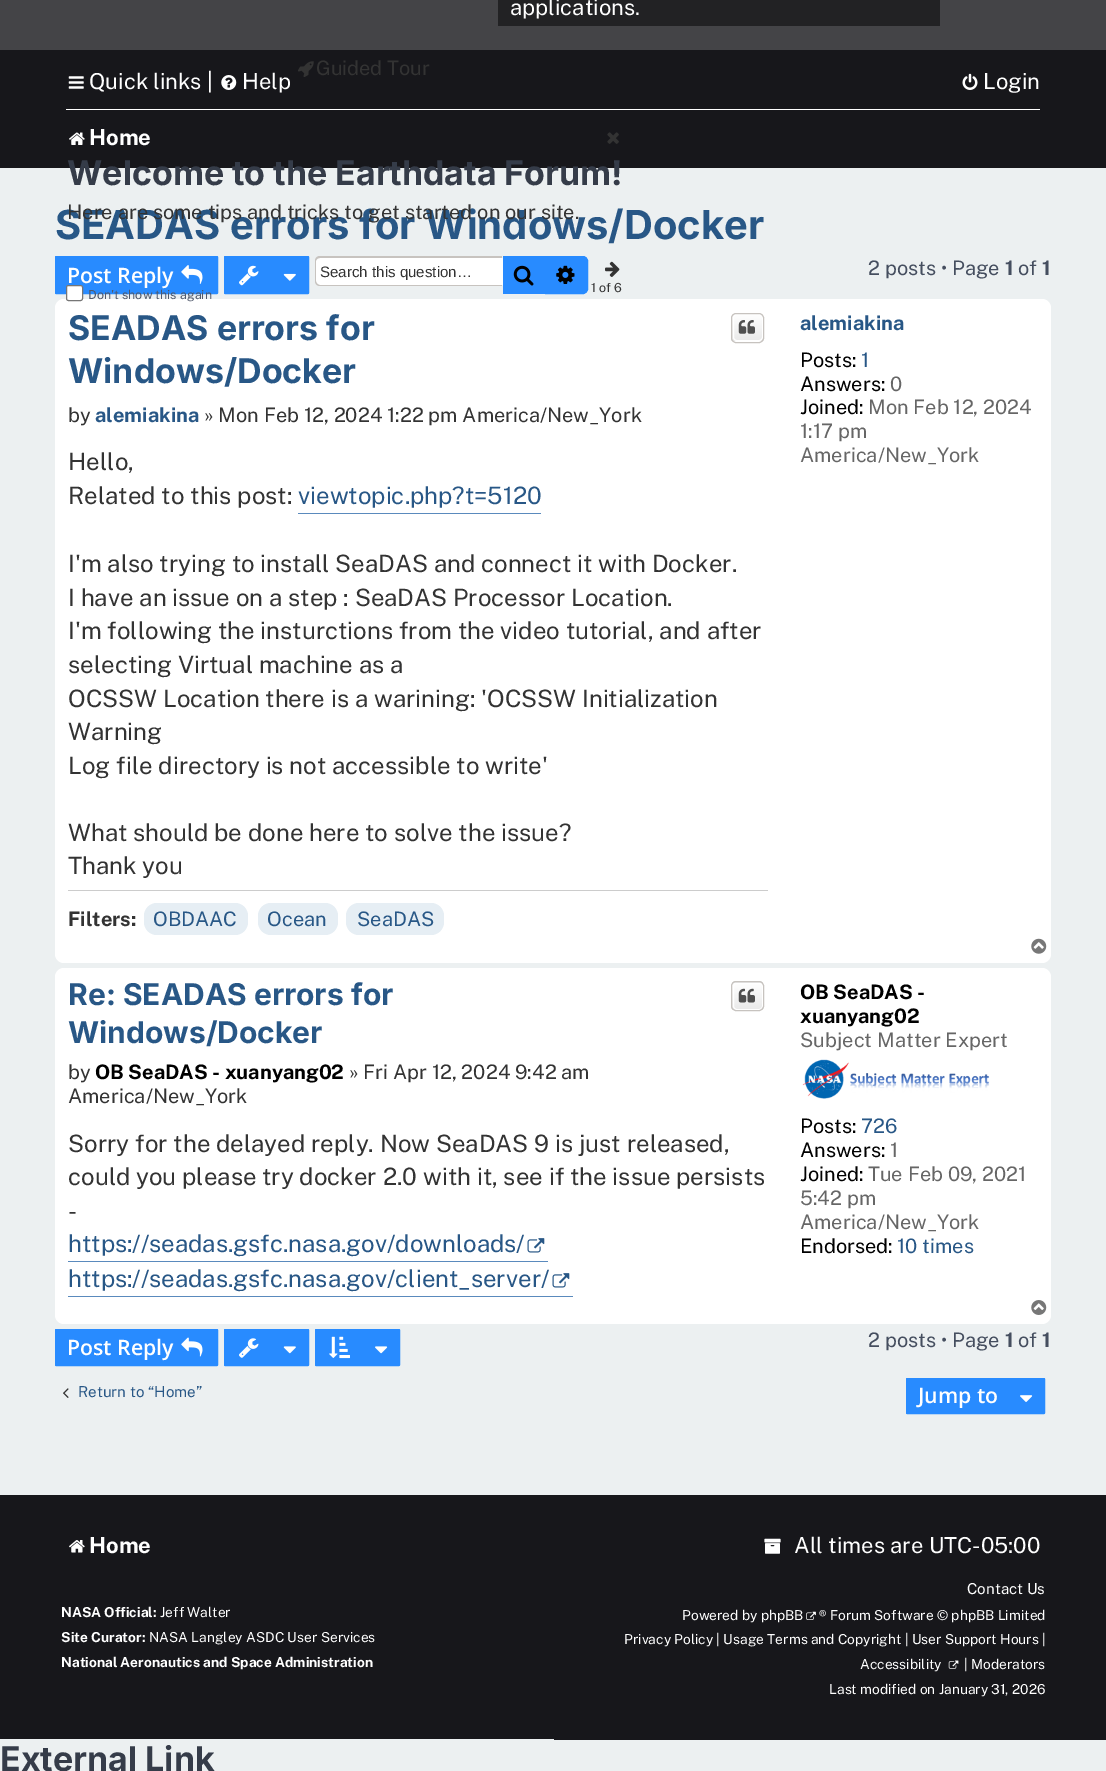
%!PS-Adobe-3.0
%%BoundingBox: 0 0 1106 1771
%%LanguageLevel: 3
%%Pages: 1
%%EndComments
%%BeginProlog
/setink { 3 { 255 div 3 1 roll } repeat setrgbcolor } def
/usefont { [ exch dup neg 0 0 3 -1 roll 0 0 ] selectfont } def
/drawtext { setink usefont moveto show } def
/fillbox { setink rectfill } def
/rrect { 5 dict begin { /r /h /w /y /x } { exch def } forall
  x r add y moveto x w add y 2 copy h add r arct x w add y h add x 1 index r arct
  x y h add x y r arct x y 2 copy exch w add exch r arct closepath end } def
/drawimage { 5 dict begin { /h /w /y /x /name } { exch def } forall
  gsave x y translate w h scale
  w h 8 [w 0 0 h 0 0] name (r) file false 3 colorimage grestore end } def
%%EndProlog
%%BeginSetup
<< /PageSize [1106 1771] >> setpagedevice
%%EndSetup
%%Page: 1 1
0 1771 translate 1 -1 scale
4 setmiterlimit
0 0 1106 1771 236 240 241 fillbox
0 0 1106 50 68 68 71 fillbox
498 0 442 26 34 34 36 fillbox
(applications.) 510 15 /PublicSans-Regular 22 255 255 255 drawtext
0 50 1106 118 23 23 27 fillbox
(assets/img1.rgb) 298 61 16 16 drawimage
(Guided Tour) 316 75 /PublicSans-Regular 20 51 51 51 drawtext
(assets/img2.rgb) 68 76 16 13 drawimage
(Quick links |) 89 89 /PublicSans-Regular 22 255 255 255 drawtext
(assets/img3.rgb) 221 75 16 15 drawimage
(Help) 242 89 /PublicSans-Regular 22 255 255 255 drawtext
(assets/img4.rgb) 962 73 16 17 drawimage
(Login) 983 89 /PublicSans-Regular 22 255 255 255 drawtext
(assets/img5.rgb) 607 132 12 12 drawimage
(Welcome to the Earthdata Forum!) 67 185 /Inter-Bold 34 53 60 73 drawtext
(SEADAS errors for Windows/Docker) 55 239 /Inter-Bold 40 40 87 134 drawtext
(Here are some tips and tricks to get started on our site.) 67 219 /PublicSans-Regular 20 51 51 51 drawtext
(assets/img6.rgb) 605 261 15 16 drawimage
(1 of 6) 591 292 /PublicSans-Regular 12.5 51 51 51 drawtext
40 139 255 setink
55.5 256.5 162 37 0.5 rrect gsave fill grestore
stroke
255 255 255 setink
55 299 996 664 9 rrect fill
66.5 285.5 16 15 2 rrect gsave fill grestore
118 118 118 setink
stroke
(Don't show this again) 88 299 /PublicSans-Regular 12.5 80 89 108 drawtext
66 109 974 1 255 255 255 fillbox
(assets/img7.rgb) 69 132 16 13 drawimage
(Home) 89 145 /PublicSans-Bold 22 255 255 255 drawtext
(Post Reply) 67 283 /OpenSans-SemiBold 21.25 255 255 255 drawtext
(assets/img8.rgb) 181 265 22 19 drawimage
40 139 255 setink
224.5 256.5 84 37 0.5 rrect gsave fill grestore
stroke
(assets/img9.rgb) 239 265 20 21 drawimage
(assets/img10.rgb) 283 273 13 8 drawimage
255 255 255 setink
320 258 moveto 503 258 lineto 503 285 lineto 320 285 lineto 318 285 316 283 316 281 curveto 316 262 lineto 316 260 318 258 320 258 curveto closepath fill
199 195 191 setink
320 256 moveto 502 256 lineto 502 286 lineto 320 286 lineto 317 286 315 284 315 281 curveto 315 261 lineto 315 258 317 256 320 256 curveto closepath 320 258 moveto 502 258 lineto 502 285 lineto 320 285 lineto 318 285 316 283 316 281 curveto 316 261 lineto 316 259 318 258 320 258 curveto closepath eofill
(Search this question…) 320 277 /LiberationSans-Regular 15.1 51 51 51 drawtext
503 256 42 38 40 139 255 fillbox
(assets/img11.rgb) 513 265 21 21 drawimage
545.5 256.5 moveto 583 256.5 lineto 585.5 256.5 587.5 258.5 587.5 261 curveto 587.5 289 lineto 587.5 291.5 585.5 293.5 583 293.5 curveto 545.5 293.5 lineto closepath gsave fill grestore
stroke
(assets/img12.rgb) 556 265 19 19 drawimage
(2 posts • Page) 868 275 /PublicSans-Regular 20 69 78 95 drawtext
(1) 1005 275 /PublicSans-Bold 20 69 78 95 drawtext
(of) 1018 275 /PublicSans-Regular 20 69 78 95 drawtext
(1) 1042 275 /PublicSans-Bold 20 69 78 95 drawtext
(SEADAS errors for) 68 340 /Inter-Bold 34 40 87 134 drawtext
(Windows/Docker) 68 383 /Inter-Bold 34 40 87 134 drawtext
gsave
731 313 33 30 5 rrect clip newpath
gsave 731 314 moveto 764 314 lineto 764 341 lineto 731 341 lineto closepath clip newpath
<< /ShadingType 2 /ColorSpace /DeviceRGB /Coords [748 314 748 341] /Extend [true true] /Function << /FunctionType 2 /Domain [0 1] /C0 [1 1 1] /C1 [0.914 0.914 0.914] /N 1 >> >> shfill grestore
grestore
255 255 255 setink
733.5 314.5 29 26 3.5 rrect stroke
199 195 191 setink
731.5 313.5 32 29 4.5 rrect stroke
(assets/img13.rgb) 738 320 17 14 drawimage
(by) 68 422 /PublicSans-Regular 20 51 51 51 drawtext
(alemiakina) 95 422 /PublicSans-Bold 20 40 87 134 drawtext
(» Mon Feb 12, 2024 1:22 pm America/New_York) 204 422 /PublicSans-Regular 20 51 51 51 drawtext
(Hello,) 68 470 /PublicSans-Regular 24 51 51 51 drawtext
(Related to this post:) 68 504 /PublicSans-Regular 24 51 51 51 drawtext
298 513 243 1 90 138 189 fillbox
(viewtopic.php?t=5120) 298 504 /PublicSans-Regular 24 40 87 134 drawtext
(I'm also trying to install SeaDAS and connect it with Docker.) 68 572 /PublicSans-Regular 24 51 51 51 drawtext
(I have an issue on a step : SeaDAS Processor Location.) 68 606 /PublicSans-Regular 24 51 51 51 drawtext
(I'm following the insturctions from the video tutorial, and after) 68 639 /PublicSans-Regular 24 51 51 51 drawtext
(selecting Virtual machine as a) 68 673 /PublicSans-Regular 24 51 51 51 drawtext
(OCSSW Location there is a warining: 'OCSSW Initialization) 68 707 /PublicSans-Regular 24 51 51 51 drawtext
(Warning) 68 740 /PublicSans-Regular 24 51 51 51 drawtext
(Log file directory is not accessible to write') 68 774 /PublicSans-Regular 24 51 51 51 drawtext
(What should be done here to solve the issue?) 68 841 /PublicSans-Regular 24 51 51 51 drawtext
(Thank you) 68 874 /PublicSans-Regular 24 51 51 51 drawtext
68 890 700 1 204 204 204 fillbox
(Filters:) 68 926 /PublicSans-Bold 20 51 51 51 drawtext
230 238 244 setink
144 903 104 32 13 rrect fill
(OBDAAC) 153 926 /PublicSans-Regular 20 40 87 134 drawtext
230 238 244 setink
258 903 80 32 13 rrect fill
(Ocean) 267 926 /PublicSans-Regular 20 40 87 134 drawtext
230 238 244 setink
346 903 98 32 13 rrect fill
(SeaDAS) 357 926 /PublicSans-Regular 20 40 87 134 drawtext
(alemiakina) 800 330 /PublicSans-Bold 20 40 87 134 drawtext
(Posts:) 800 367 /PublicSans-Regular 20 0 0 0 drawtext
(1) 861 367 /PublicSans-Regular 20 40 87 134 drawtext
(Answers:) 800 391 /PublicSans-Regular 20 0 0 0 drawtext
(0) 890 391 /PublicSans-Regular 20 102 102 102 drawtext
(Joined:) 800 414 /PublicSans-Regular 20 0 0 0 drawtext
(Mon Feb 12, 2024) 868 414 /PublicSans-Regular 20 102 102 102 drawtext
(1:17 pm) 800 438 /PublicSans-Regular 20 102 102 102 drawtext
(America/New_York) 800 462 /PublicSans-Regular 20 102 102 102 drawtext
(assets/img14.rgb) 1031 938 16 16 drawimage
255 255 255 setink
55 968 996 356 9 rrect fill
(Re: SEADAS errors for) 68 1005 /Inter-Bold 30 40 87 134 drawtext
(Windows/Docker) 68 1043 /Inter-Bold 30 40 87 134 drawtext
gsave
731 981 33 30 5 rrect clip newpath
gsave 731 981 moveto 764 981 lineto 764 983 lineto 731 983 lineto closepath clip newpath
<< /ShadingType 2 /ColorSpace /DeviceRGB /Coords [748 955 748 983] /Extend [true true] /Function << /FunctionType 2 /Domain [0 1] /C0 [1 1 1] /C1 [0.914 0.914 0.914] /N 1 >> >> shfill grestore
gsave 731 983 moveto 764 983 lineto 764 1010 lineto 731 1010 lineto closepath clip newpath
<< /ShadingType 2 /ColorSpace /DeviceRGB /Coords [748 983 748 1010] /Extend [true true] /Function << /FunctionType 2 /Domain [0 1] /C0 [1 1 1] /C1 [0.914 0.914 0.914] /N 1 >> >> shfill grestore
grestore
255 255 255 setink
733.5 983.5 29 26 3.5 rrect stroke
199 195 191 setink
731.5 981.5 32 29 4.5 rrect stroke
(assets/img15.rgb) 738 988 17 15 drawimage
(by) 68 1079 /PublicSans-Regular 20 51 51 51 drawtext
(OB SeaDAS - xuanyang02) 95 1079 /PublicSans-Bold 20 0 0 0 drawtext
(» Fri Apr 12, 2024 9:42 am) 349 1079 /PublicSans-Regular 20 51 51 51 drawtext
(America/New_York) 68 1103 /PublicSans-Regular 20 51 51 51 drawtext
(Sorry for the delayed reply. Now SeaDAS 9 is just released,) 68 1152 /PublicSans-Regular 24 51 51 51 drawtext
(could you please try docker 2.0 with it, see if the issue persists) 68 1185 /PublicSans-Regular 24 51 51 51 drawtext
(-) 68 1219 /PublicSans-Regular 24 51 51 51 drawtext
68 1261 480 1 90 138 189 fillbox
(https://seadas.gsfc.nasa.gov/downloads/) 68 1252 /PublicSans-Regular 24 40 87 134 drawtext
(assets/img16.rgb) 527 1238 18 15 drawimage
68 1296 505 1 90 138 189 fillbox
(https://seadas.gsfc.nasa.gov/client_server/) 68 1287 /PublicSans-Regular 24 40 87 134 drawtext
(assets/img16.rgb) 552 1273 18 15 drawimage
(OB SeaDAS -) 800 999 /PublicSans-Bold 20 0 0 0 drawtext
(xuanyang02) 800 1023 /PublicSans-Bold 20 0 0 0 drawtext
(Subject Matter Expert) 800 1047 /PublicSans-Regular 20 102 102 102 drawtext
(assets/img17.rgb) 802 1059 188 40 drawimage
(Posts:) 800 1133 /PublicSans-Regular 20 0 0 0 drawtext
(726) 861 1133 /PublicSans-Regular 20 40 87 134 drawtext
(Answers:) 800 1157 /PublicSans-Regular 20 0 0 0 drawtext
(1) 890 1157 /PublicSans-Regular 20 102 102 102 drawtext
(Joined:) 800 1181 /PublicSans-Regular 20 0 0 0 drawtext
(Tue Feb 09, 2021) 868 1181 /PublicSans-Regular 20 102 102 102 drawtext
(5:42 pm) 800 1205 /PublicSans-Regular 20 102 102 102 drawtext
(America/New_York) 800 1229 /PublicSans-Regular 20 102 102 102 drawtext
(Endorsed:) 800 1253 /PublicSans-Regular 20 0 0 0 drawtext
(10 times) 897 1253 /PublicSans-Regular 20 40 87 134 drawtext
(assets/img18.rgb) 1031 1300 16 15 drawimage
40 139 255 setink
55.5 1329.5 162 36 0.5 rrect gsave fill grestore
stroke
(Post Reply) 67 1355 /OpenSans-SemiBold 21.25 255 255 255 drawtext
(assets/img19.rgb) 181 1337 22 20 drawimage
40 139 255 setink
224.5 1329.5 84 36 0.5 rrect gsave fill grestore
stroke
(assets/img20.rgb) 239 1338 20 20 drawimage
(assets/img21.rgb) 283 1346 13 8 drawimage
315.5 1329.5 84 36 0.5 rrect gsave fill grestore
stroke
(assets/img22.rgb) 329 1336 21 23 drawimage
(assets/img23.rgb) 375 1346 13 8 drawimage
(2 posts • Page) 868 1347 /PublicSans-Regular 20 69 78 95 drawtext
(1) 1005 1347 /PublicSans-Bold 20 69 78 95 drawtext
(of) 1018 1347 /PublicSans-Regular 20 69 78 95 drawtext
(1) 1042 1347 /PublicSans-Bold 20 69 78 95 drawtext
(assets/img24.rgb) 63 1388 6 10 drawimage
(Return to “Home”) 78 1397 /PublicSans-Regular 15.1 40 87 134 drawtext
40 139 255 setink
906.5 1378.5 138 35 0.5 rrect gsave fill grestore
stroke
(Jump to) 918 1403 /OpenSans-SemiBold 21.25 255 255 255 drawtext
(assets/img25.rgb) 1020 1395 13 7 drawimage
0 1495 1106 81 23 23 27 fillbox
(assets/img26.rgb) 69 1540 16 13 drawimage
(Home) 89 1553 /PublicSans-Bold 22 255 255 255 drawtext
(assets/img27.rgb) 764 1538 17 16 drawimage
(All times are UTC-05:00) 794 1553 /PublicSans-Regular 22 255 255 255 drawtext
0 1576 554 163 23 23 27 fillbox
(NASA Official:) 61 1617 /PublicSans-Bold 13.75 255 255 255 drawtext
(Jeff Walter) 160 1617 /PublicSans-Regular 13.75 255 255 255 drawtext
(Site Curator:) 61 1642 /PublicSans-Bold 13.75 255 255 255 drawtext
(NASA Langley ASDC User Services) 149 1642 /PublicSans-Regular 13.75 255 255 255 drawtext
(National Aeronautics and Space Administration) 61 1667 /PublicSans-Bold 13.75 255 255 255 drawtext
554 1576 552 164 23 23 27 fillbox
(Contact Us) 967 1594 /PublicSans-Regular 15.1 255 255 255 drawtext
(Powered by phpBB) 682 1620 /PublicSans-Regular 13.75 255 255 255 drawtext
(assets/img28.rgb) 806 1611 10 9 drawimage
(® Forum Software © phpBB Limited) 819 1620 /PublicSans-Regular 13.75 255 255 255 drawtext
(Privacy Policy | Usage Terms and Copyright | User Support Hours |) 624 1644 /PublicSans-Regular 13.75 255 255 255 drawtext
(Accessibility) 860 1669 /PublicSans-Regular 13.75 255 255 255 drawtext
(assets/img29.rgb) 948 1660 11 9 drawimage
(| Moderators) 964 1669 /PublicSans-Regular 13.75 255 255 255 drawtext
(Last modified on January 31, 2026) 829 1694 /PublicSans-Regular 13.75 255 255 255 drawtext
(External Link) 0 1771 /Inter-Bold 34 53 60 73 drawtext
showpage
%%EOF
